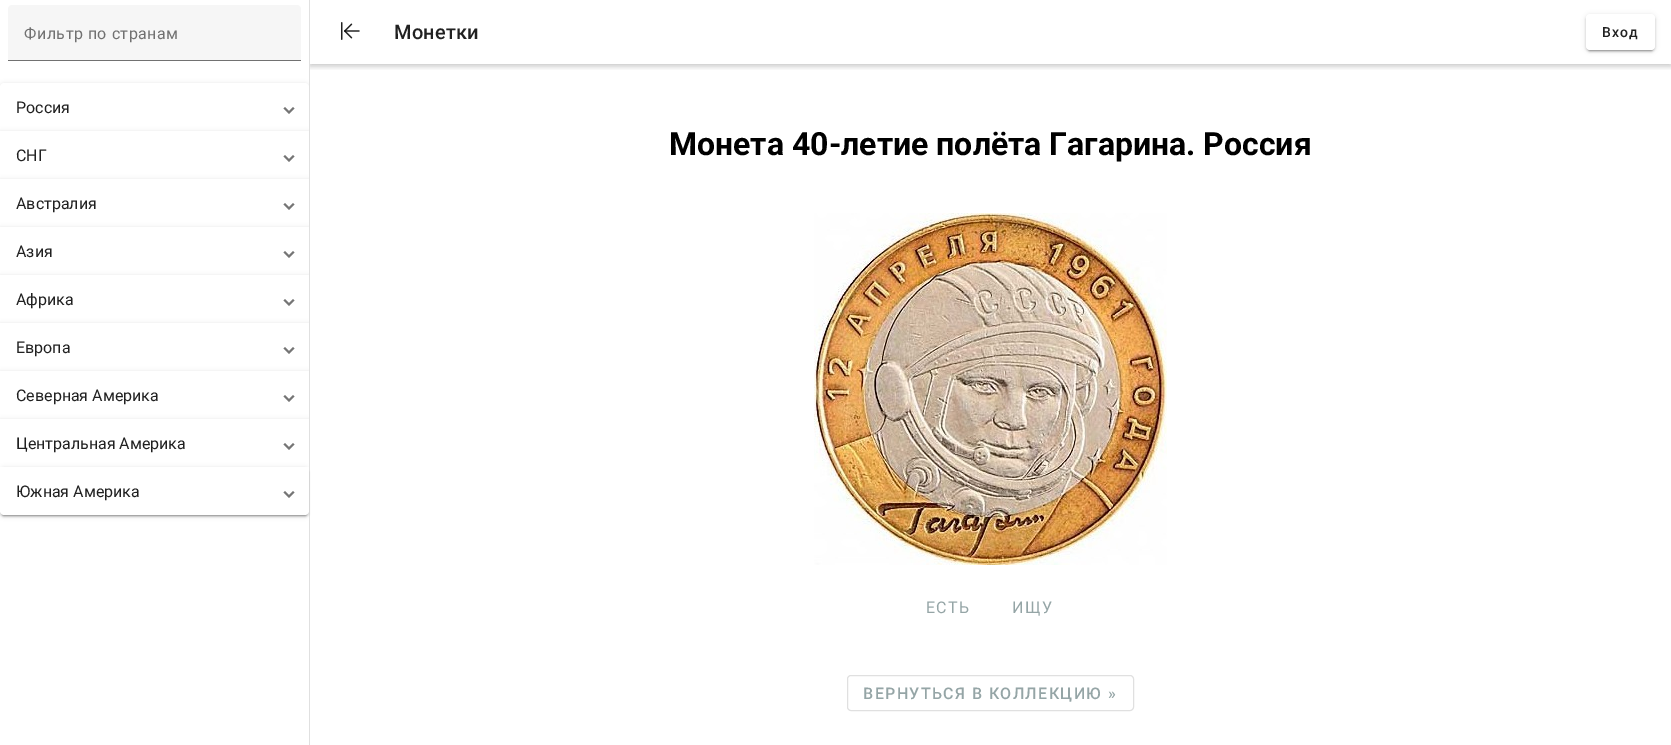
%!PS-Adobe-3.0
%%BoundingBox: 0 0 1671 745
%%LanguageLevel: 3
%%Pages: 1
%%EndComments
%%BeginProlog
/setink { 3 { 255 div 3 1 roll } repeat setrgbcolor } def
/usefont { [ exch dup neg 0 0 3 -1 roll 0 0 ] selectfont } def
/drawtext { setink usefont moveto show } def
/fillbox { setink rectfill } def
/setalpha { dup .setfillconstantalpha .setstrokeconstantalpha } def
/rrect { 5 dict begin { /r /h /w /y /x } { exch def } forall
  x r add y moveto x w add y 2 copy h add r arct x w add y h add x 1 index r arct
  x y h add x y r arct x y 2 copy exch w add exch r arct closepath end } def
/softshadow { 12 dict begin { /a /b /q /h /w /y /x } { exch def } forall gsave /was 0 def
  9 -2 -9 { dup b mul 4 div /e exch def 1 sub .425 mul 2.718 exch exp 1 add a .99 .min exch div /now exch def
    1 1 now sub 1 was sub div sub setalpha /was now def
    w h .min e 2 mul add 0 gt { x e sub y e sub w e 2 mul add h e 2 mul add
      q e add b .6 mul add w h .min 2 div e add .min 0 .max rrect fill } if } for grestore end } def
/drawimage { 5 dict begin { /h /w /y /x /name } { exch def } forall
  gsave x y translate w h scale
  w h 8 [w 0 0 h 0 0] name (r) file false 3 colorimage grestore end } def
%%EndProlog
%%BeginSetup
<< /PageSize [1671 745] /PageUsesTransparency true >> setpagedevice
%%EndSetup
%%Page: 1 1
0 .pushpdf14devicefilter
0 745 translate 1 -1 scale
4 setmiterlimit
0 0 1671 745 255 255 255 fillbox
gsave
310 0 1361 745 rectclip
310 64 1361 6 rectclip
0 0 0 setink
310 2 1361 64 0 5 0.1 softshadow
grestore
gsave
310 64 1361 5 rectclip
0 0 0 setink
310 2 1361 64 0 2.5 0.14 softshadow
grestore
309 0 1 745 224 224 224 fillbox
246 246 246 setink
12 5 moveto 297 5 lineto 299 5 301 7 301 9 curveto 301 61 lineto 8 61 lineto 8 9 lineto 8 7 10 5 12 5 curveto closepath fill
/Roboto-Regular 16 usefont
113 113 113 setink
24 39 moveto 0.5 0 (Фильтр по странам) ashow
8 60 293 1 113 113 113 fillbox
gsave
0 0 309 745 rectclip
0 0 0 setink
0 84 309 48 4 2.5 0.12 softshadow
grestore
255 255 255 setink
4 83 moveto 305 83 lineto 307 83 309 85 309 87 curveto 309 131 lineto 0 131 lineto 0 87 lineto 0 85 2 83 4 83 curveto closepath fill
(Россия) 16 113 /Roboto-Regular 16 33 33 33 drawtext
117 117 117 setink
294.5 108.5 moveto 289 114 lineto 289 111 lineto 293 107 lineto closepath 289 114 moveto 283.5 108.5 lineto 285 107 lineto 289 111 lineto closepath fill
gsave
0 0 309 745 rectclip
0 0 0 setink
0 132 309 48 0 2.5 0.12 softshadow
grestore
0 131 309 48 255 255 255 fillbox
(СНГ) 16 161 /Roboto-Regular 16 33 33 33 drawtext
117 117 117 setink
294.5 156.5 moveto 289 162 lineto 289 159 lineto 293 155 lineto closepath 289 162 moveto 283.5 156.5 lineto 285 155 lineto 289 159 lineto closepath fill
gsave
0 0 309 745 rectclip
0 0 0 setink
0 180 309 48 0 2.5 0.12 softshadow
grestore
0 179 309 48 255 255 255 fillbox
(Австралия) 16 209 /Roboto-Regular 16 33 33 33 drawtext
117 117 117 setink
294.5 204.5 moveto 289 210 lineto 289 207 lineto 293 203 lineto closepath 289 210 moveto 283.5 204.5 lineto 285 203 lineto 289 207 lineto closepath fill
gsave
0 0 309 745 rectclip
0 0 0 setink
0 228 309 48 0 2.5 0.12 softshadow
grestore
0 227 309 48 255 255 255 fillbox
(Азия) 16 257 /Roboto-Regular 16 33 33 33 drawtext
117 117 117 setink
294.5 252.5 moveto 289 258 lineto 289 255 lineto 293 251 lineto closepath 289 258 moveto 283.5 252.5 lineto 285 251 lineto 289 255 lineto closepath fill
gsave
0 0 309 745 rectclip
0 0 0 setink
0 276 309 48 0 2.5 0.12 softshadow
grestore
0 275 309 48 255 255 255 fillbox
(Африка) 16 305 /Roboto-Regular 16 33 33 33 drawtext
117 117 117 setink
294.5 300.5 moveto 289 306 lineto 289 303 lineto 293 299 lineto closepath 289 306 moveto 283.5 300.5 lineto 285 299 lineto 289 303 lineto closepath fill
gsave
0 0 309 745 rectclip
0 0 0 setink
0 324 309 48 0 2.5 0.12 softshadow
grestore
0 323 309 48 255 255 255 fillbox
(Европа) 16 353 /Roboto-Regular 16 33 33 33 drawtext
117 117 117 setink
294.5 348.5 moveto 289 354 lineto 289 351 lineto 293 347 lineto closepath 289 354 moveto 283.5 348.5 lineto 285 347 lineto 289 351 lineto closepath fill
gsave
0 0 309 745 rectclip
0 0 0 setink
0 372 309 48 0 2.5 0.12 softshadow
grestore
0 371 309 48 255 255 255 fillbox
(Северная Америка) 16 401 /Roboto-Regular 16 33 33 33 drawtext
117 117 117 setink
294.5 396.5 moveto 289 402 lineto 289 399 lineto 293 395 lineto closepath 289 402 moveto 283.5 396.5 lineto 285 395 lineto 289 399 lineto closepath fill
gsave
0 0 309 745 rectclip
0 0 0 setink
0 420 309 48 0 2.5 0.12 softshadow
grestore
0 419 309 48 255 255 255 fillbox
(Центральная Америка) 16 449 /Roboto-Regular 16 33 33 33 drawtext
117 117 117 setink
294.5 444.5 moveto 289 450 lineto 289 447 lineto 293 443 lineto closepath 289 450 moveto 283.5 444.5 lineto 285 443 lineto 289 447 lineto closepath fill
gsave
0 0 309 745 rectclip
0 0 0 setink
0 468 309 48 4 2.5 0.12 softshadow
grestore
0 0 0 setink
0 469 309 48 4 1 0.14 softshadow
2 472 305 44 2 0.5 0.2 softshadow
255 255 255 setink
0 467 moveto 309 467 lineto 309 511 lineto 309 513 307 515 305 515 curveto 4 515 lineto 2 515 0 513 0 511 curveto closepath fill
(Южная Америка) 16 497 /Roboto-Regular 16 33 33 33 drawtext
117 117 117 setink
294.5 492.5 moveto 289 498 lineto 289 495 lineto 293 491 lineto closepath 289 498 moveto 283.5 492.5 lineto 285 491 lineto 289 495 lineto closepath fill
(assets/img1.rgb) 341 22 19 18 drawimage
/Roboto-Medium 20 usefont
33 33 33 setink
394 39 moveto 0.25 0 (Монетки) ashow
0 0 0 setink
1586 15 69 36 4 2.5 0.12 softshadow
1586 16 69 36 4 1 0.14 softshadow
1588 19 65 32 2 0.5 0.2 softshadow
255 255 255 setink
1586 14 69 36 4 rrect fill
/Roboto-Medium 14 usefont
33 33 33 setink
1602 37 moveto 1 0 (Вход) ashow
(Монета 40-летие полёта Гагарина. Россия) 669 155 /Roboto-Bold 32 0 0 0 drawtext
(assets/img2.rgb) 814 213 353 352 drawimage
/Roboto-Regular 16 usefont
149 165 166 setink
926 613 moveto 1.4 0 (ЕСТЬ) ashow
1012 613 moveto 1.4 0 (ИЩУ) ashow
224 224 224 setink
847.5 675.5 286 35 3.5 rrect stroke
/Roboto-Medium 16 usefont
149 165 166 setink
863 699 moveto 1.4 0 (ВЕРНУТЬСЯ В КОЛЛЕКЦИЮ ») ashow
.poppdf14devicefilter showpage
%%EOF
